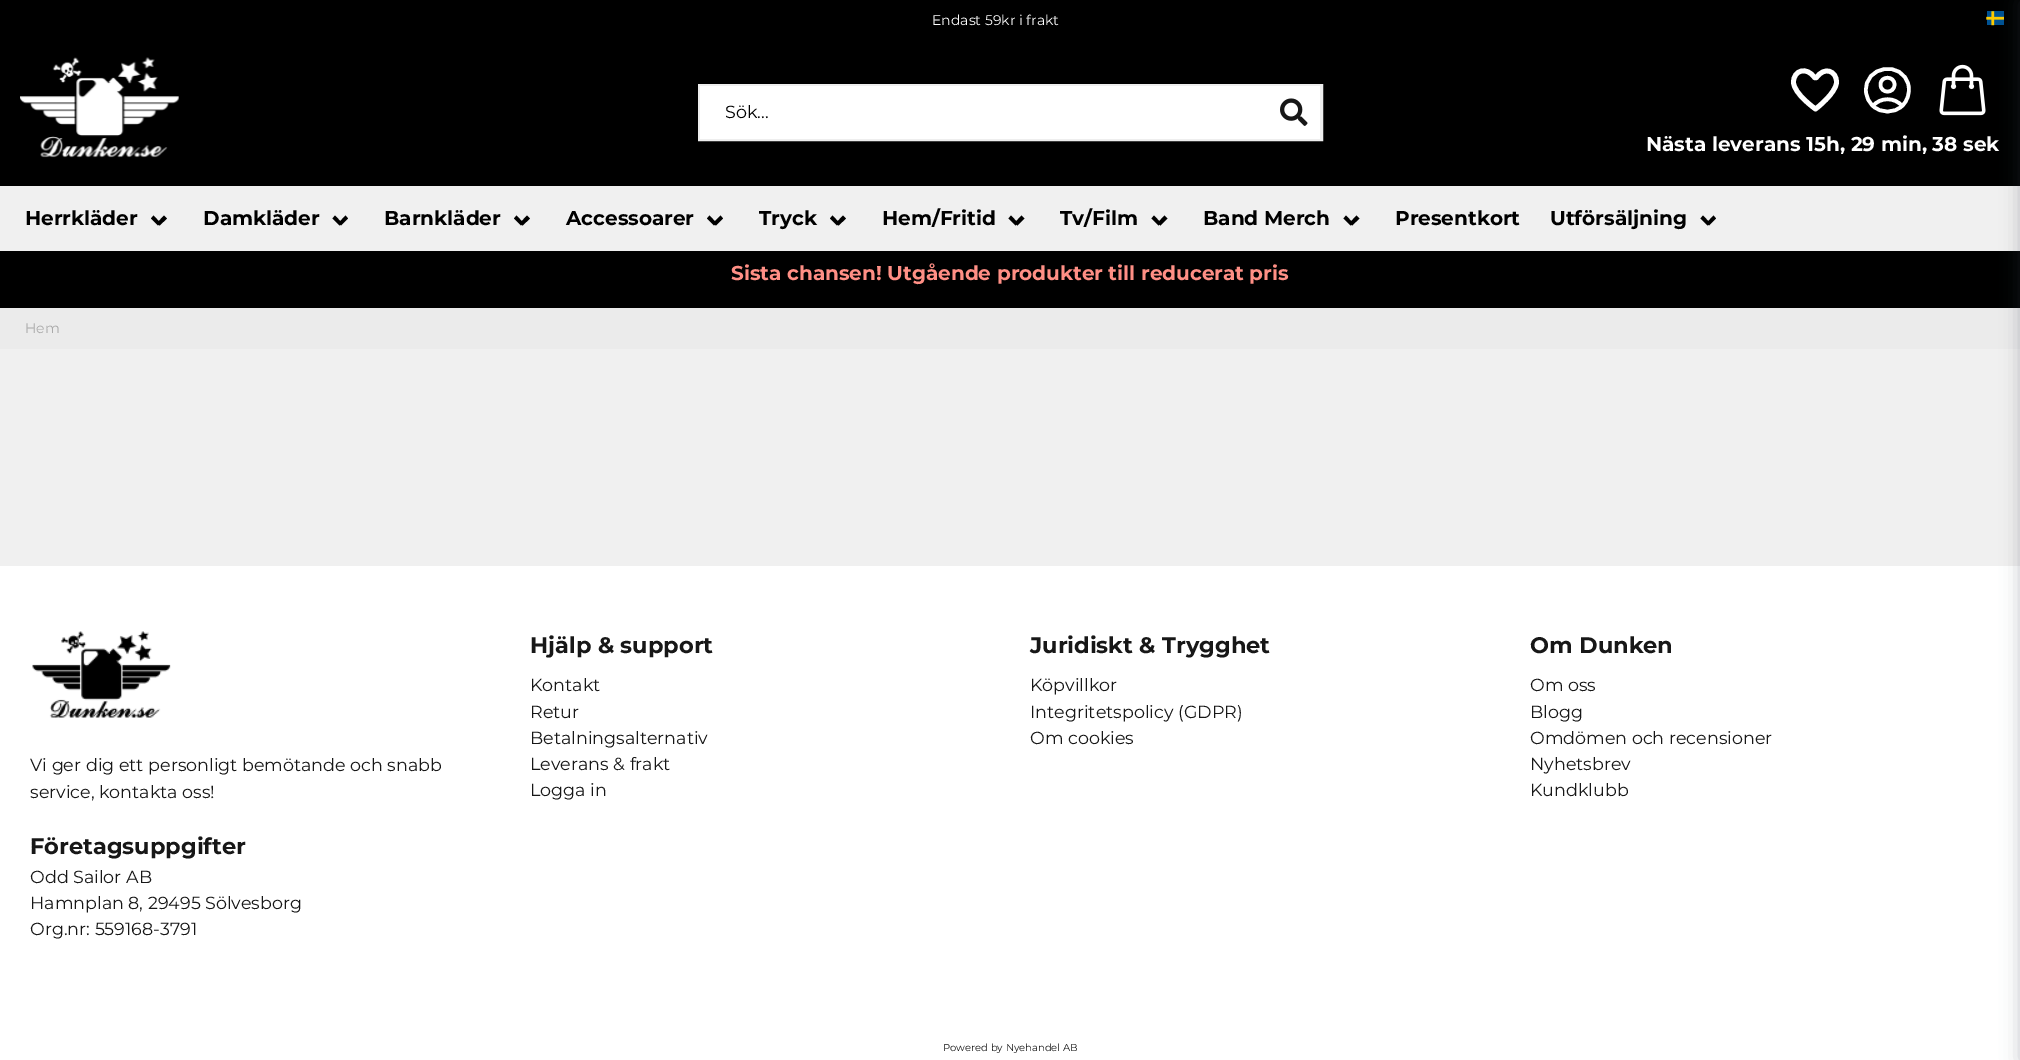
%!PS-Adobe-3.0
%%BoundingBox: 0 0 2020 1060
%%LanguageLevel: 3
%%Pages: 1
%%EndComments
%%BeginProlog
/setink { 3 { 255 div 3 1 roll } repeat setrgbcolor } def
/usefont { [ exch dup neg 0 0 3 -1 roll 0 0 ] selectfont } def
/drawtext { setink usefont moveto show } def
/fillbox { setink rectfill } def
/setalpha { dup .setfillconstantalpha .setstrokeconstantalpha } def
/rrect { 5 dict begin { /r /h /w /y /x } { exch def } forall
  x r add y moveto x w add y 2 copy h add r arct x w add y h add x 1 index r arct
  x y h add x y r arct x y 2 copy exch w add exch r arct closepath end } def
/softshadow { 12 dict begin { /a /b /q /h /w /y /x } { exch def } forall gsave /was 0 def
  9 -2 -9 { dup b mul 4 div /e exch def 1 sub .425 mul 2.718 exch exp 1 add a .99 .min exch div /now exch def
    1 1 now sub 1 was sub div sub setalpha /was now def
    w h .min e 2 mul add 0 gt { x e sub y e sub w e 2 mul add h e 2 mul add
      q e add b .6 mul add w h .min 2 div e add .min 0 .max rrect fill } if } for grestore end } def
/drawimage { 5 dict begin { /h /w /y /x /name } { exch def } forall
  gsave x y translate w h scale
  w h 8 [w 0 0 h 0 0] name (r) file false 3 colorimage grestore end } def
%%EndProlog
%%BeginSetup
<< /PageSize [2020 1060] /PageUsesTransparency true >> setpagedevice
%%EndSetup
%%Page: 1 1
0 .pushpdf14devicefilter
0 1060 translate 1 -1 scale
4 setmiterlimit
0 0 2020 1060 240 240 240 fillbox
0 0 2020 186 0 0 0 fillbox
(Endast 59kr i frakt) 932 25 /Montserrat-Regular 14 255 255 255 drawtext
(assets/img1.rgb) 1986 11 18 15 drawimage
(assets/img2.rgb) 20 57 159 101 drawimage
238 238 238 setink
3 setlinewidth
699.5 85.5 622 54 rectstroke
700 86 620 53 255 255 255 fillbox
(Sök...) 725 118 /Montserrat-Regular 17.5 0 0 0 drawtext
(assets/img3.rgb) 1280 98 28 28 drawimage
255 255 255 setink
4.8 setlinewidth
1 setlinecap
1 setlinejoin
1814.5 77.5 moveto 1806.5 66 1793.5 70.5 1793.5 82 curveto 1793.5 93.5 1815.5 109 1815.5 109 curveto 1815.5 109 1836.5 93 1836.5 82 curveto 1836.5 71 1824.5 66 1816.5 77.5 curveto 1815.5 78 lineto closepath stroke
3.6 setlinewidth
1902 106 moveto 1895 97 1880 97 1873 106 curveto 1902 106 moveto 1907.5 101 1910 93 1908.5 85.5 curveto 1903 59.5 1863.5 65.5 1866 92 curveto 1866.5 97.5 1869 102.5 1873 106 curveto 1902 106 moveto 1894 113.5 1881 113.5 1873 106 curveto 1894.5 84.5 moveto 1894.5 94 1880.5 94 1880.5 84.5 curveto 1880.5 75.5 1894.5 75.5 1894.5 84.5 curveto closepath stroke
(assets/img4.rgb) 1939 64 47 52 drawimage
(Nästa leverans 15h, 29 min, 38 sek) 1646 151 /Montserrat-Bold 20 255 255 255 drawtext
(Herrkläder) 25 225 /Montserrat-Bold 20 0 0 0 drawtext
157 223 moveto 164 215.5 lineto 167 218.5 lineto 159.5 225.5 lineto closepath fill
151 218.5 moveto 153.5 215.5 lineto 160.5 223 lineto 158 225.5 lineto closepath fill
(Damkläder) 203 225 /Montserrat-Bold 20 0 0 0 drawtext
338.5 223 moveto 345.5 215.5 lineto 348 218.5 lineto 341 225.5 lineto closepath fill
332.5 218.5 moveto 335 215.5 lineto 342 223 lineto 339.5 225.5 lineto closepath fill
(Barnkläder) 384 225 /Montserrat-Bold 20 0 0 0 drawtext
520 223 moveto 527 215.5 lineto 530 218.5 lineto 522.5 225.5 lineto closepath fill
514 218.5 moveto 516.5 215.5 lineto 523.5 223 lineto 521 225.5 lineto closepath fill
(Accessoarer) 566 225 /Montserrat-Bold 20 0 0 0 drawtext
713 223 moveto 720.5 215.5 lineto 723 218.5 lineto 716 225.5 lineto closepath fill
707 218.5 moveto 709.5 215.5 lineto 716.5 223 lineto 714 225.5 lineto closepath fill
(Tryck) 759 225 /Montserrat-Bold 20 0 0 0 drawtext
836 223 moveto 843 215.5 lineto 846 218.5 lineto 838.5 225.5 lineto closepath fill
830 218.5 moveto 832.5 215.5 lineto 839.5 223 lineto 837 225.5 lineto closepath fill
(Hem/Fritid) 882 225 /Montserrat-Bold 20 0 0 0 drawtext
1014.5 223 moveto 1021.5 215.5 lineto 1024.5 218.5 lineto 1017.5 225.5 lineto closepath fill
1008.5 218.5 moveto 1011 215.5 lineto 1018 223 lineto 1015.5 225.5 lineto closepath fill
(Tv/Film) 1060 225 /Montserrat-Bold 20 0 0 0 drawtext
1157.5 223 moveto 1164.5 215.5 lineto 1167.5 218.5 lineto 1160.5 225.5 lineto closepath fill
1151.5 218.5 moveto 1154 215.5 lineto 1161 223 lineto 1158.5 225.5 lineto closepath fill
(Band Merch) 1203 225 /Montserrat-Bold 20 0 0 0 drawtext
1349.5 223 moveto 1356.5 215.5 lineto 1359.5 218.5 lineto 1352 225.5 lineto closepath fill
1343.5 218.5 moveto 1346 215.5 lineto 1353 223 lineto 1350.5 225.5 lineto closepath fill
(Presentkort) 1395 225 /Montserrat-Bold 20 0 0 0 drawtext
(Utförsäljning) 1550 225 /Montserrat-Bold 20 0 0 0 drawtext
1706.5 223 moveto 1713.5 215.5 lineto 1716 218.5 lineto 1709 225.5 lineto closepath fill
1700.5 218.5 moveto 1703 215.5 lineto 1710 223 lineto 1707.5 225.5 lineto closepath fill
0 251 2020 57 0 0 0 fillbox
0 308 2020 41 235 235 235 fillbox
0 566 2020 494 255 255 255 fillbox
60 66 87 setink
2020 1 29 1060 0 9.5 0.3 softshadow
(Sista chansen! Utgående produkter till reducerat pris) 731 280 /Montserrat-Bold 20 255 143 133 drawtext
(Hem) 25 333 /Montserrat-Regular 14 169 169 169 drawtext
(assets/img5.rgb) 32 631 139 87 drawimage
(Vi ger dig ett personligt bemötande och snabb) 30 771 /Montserrat-Regular 17.5 23 23 23 drawtext
(service, kontakta oss!) 30 798 /Montserrat-Regular 17.5 23 23 23 drawtext
(Hjälp & support) 530 653 /Montserrat-Bold 22.5 23 23 23 drawtext
(Kontakt) 530 691 /Montserrat-Regular 17.5 23 23 23 drawtext
(Retur) 530 718 /Montserrat-Regular 17.5 23 23 23 drawtext
(Betalningsalternativ) 530 744 /Montserrat-Regular 17.5 23 23 23 drawtext
(Leverans & frakt) 530 770 /Montserrat-Regular 17.5 23 23 23 drawtext
(Logga in) 530 796 /Montserrat-Regular 17.5 23 23 23 drawtext
(Juridiskt & Trygghet) 1030 653 /Montserrat-Bold 22.5 23 23 23 drawtext
(Köpvillkor) 1030 691 /Montserrat-Regular 17.5 23 23 23 drawtext
(Integritetspolicy \(GDPR\)) 1030 718 /Montserrat-Regular 17.5 23 23 23 drawtext
(Om cookies) 1030 744 /Montserrat-Regular 17.5 23 23 23 drawtext
(Om Dunken) 1530 653 /Montserrat-Bold 22.5 23 23 23 drawtext
(Om oss) 1530 691 /Montserrat-Regular 17.5 23 23 23 drawtext
(Blogg) 1530 718 /Montserrat-Regular 17.5 23 23 23 drawtext
(Omdömen och recensioner) 1530 744 /Montserrat-Regular 17.5 23 23 23 drawtext
(Nyhetsbrev) 1530 770 /Montserrat-Regular 17.5 23 23 23 drawtext
(Kundklubb) 1530 796 /Montserrat-Regular 17.5 23 23 23 drawtext
(Företagsuppgifter) 30 854 /Montserrat-Bold 22.5 23 23 23 drawtext
(Odd Sailor AB) 30 883 /Montserrat-Regular 17.5 23 23 23 drawtext
(Hamnplan 8, 29495 Sölvesborg) 30 909 /Montserrat-Regular 17.5 23 23 23 drawtext
(Org.nr: 559168-3791) 30 935 /Montserrat-Regular 17.5 23 23 23 drawtext
(Powered by Nyehandel AB) 943 1051 /Montserrat-Regular 10 23 23 23 drawtext
.poppdf14devicefilter showpage
%%EOF
